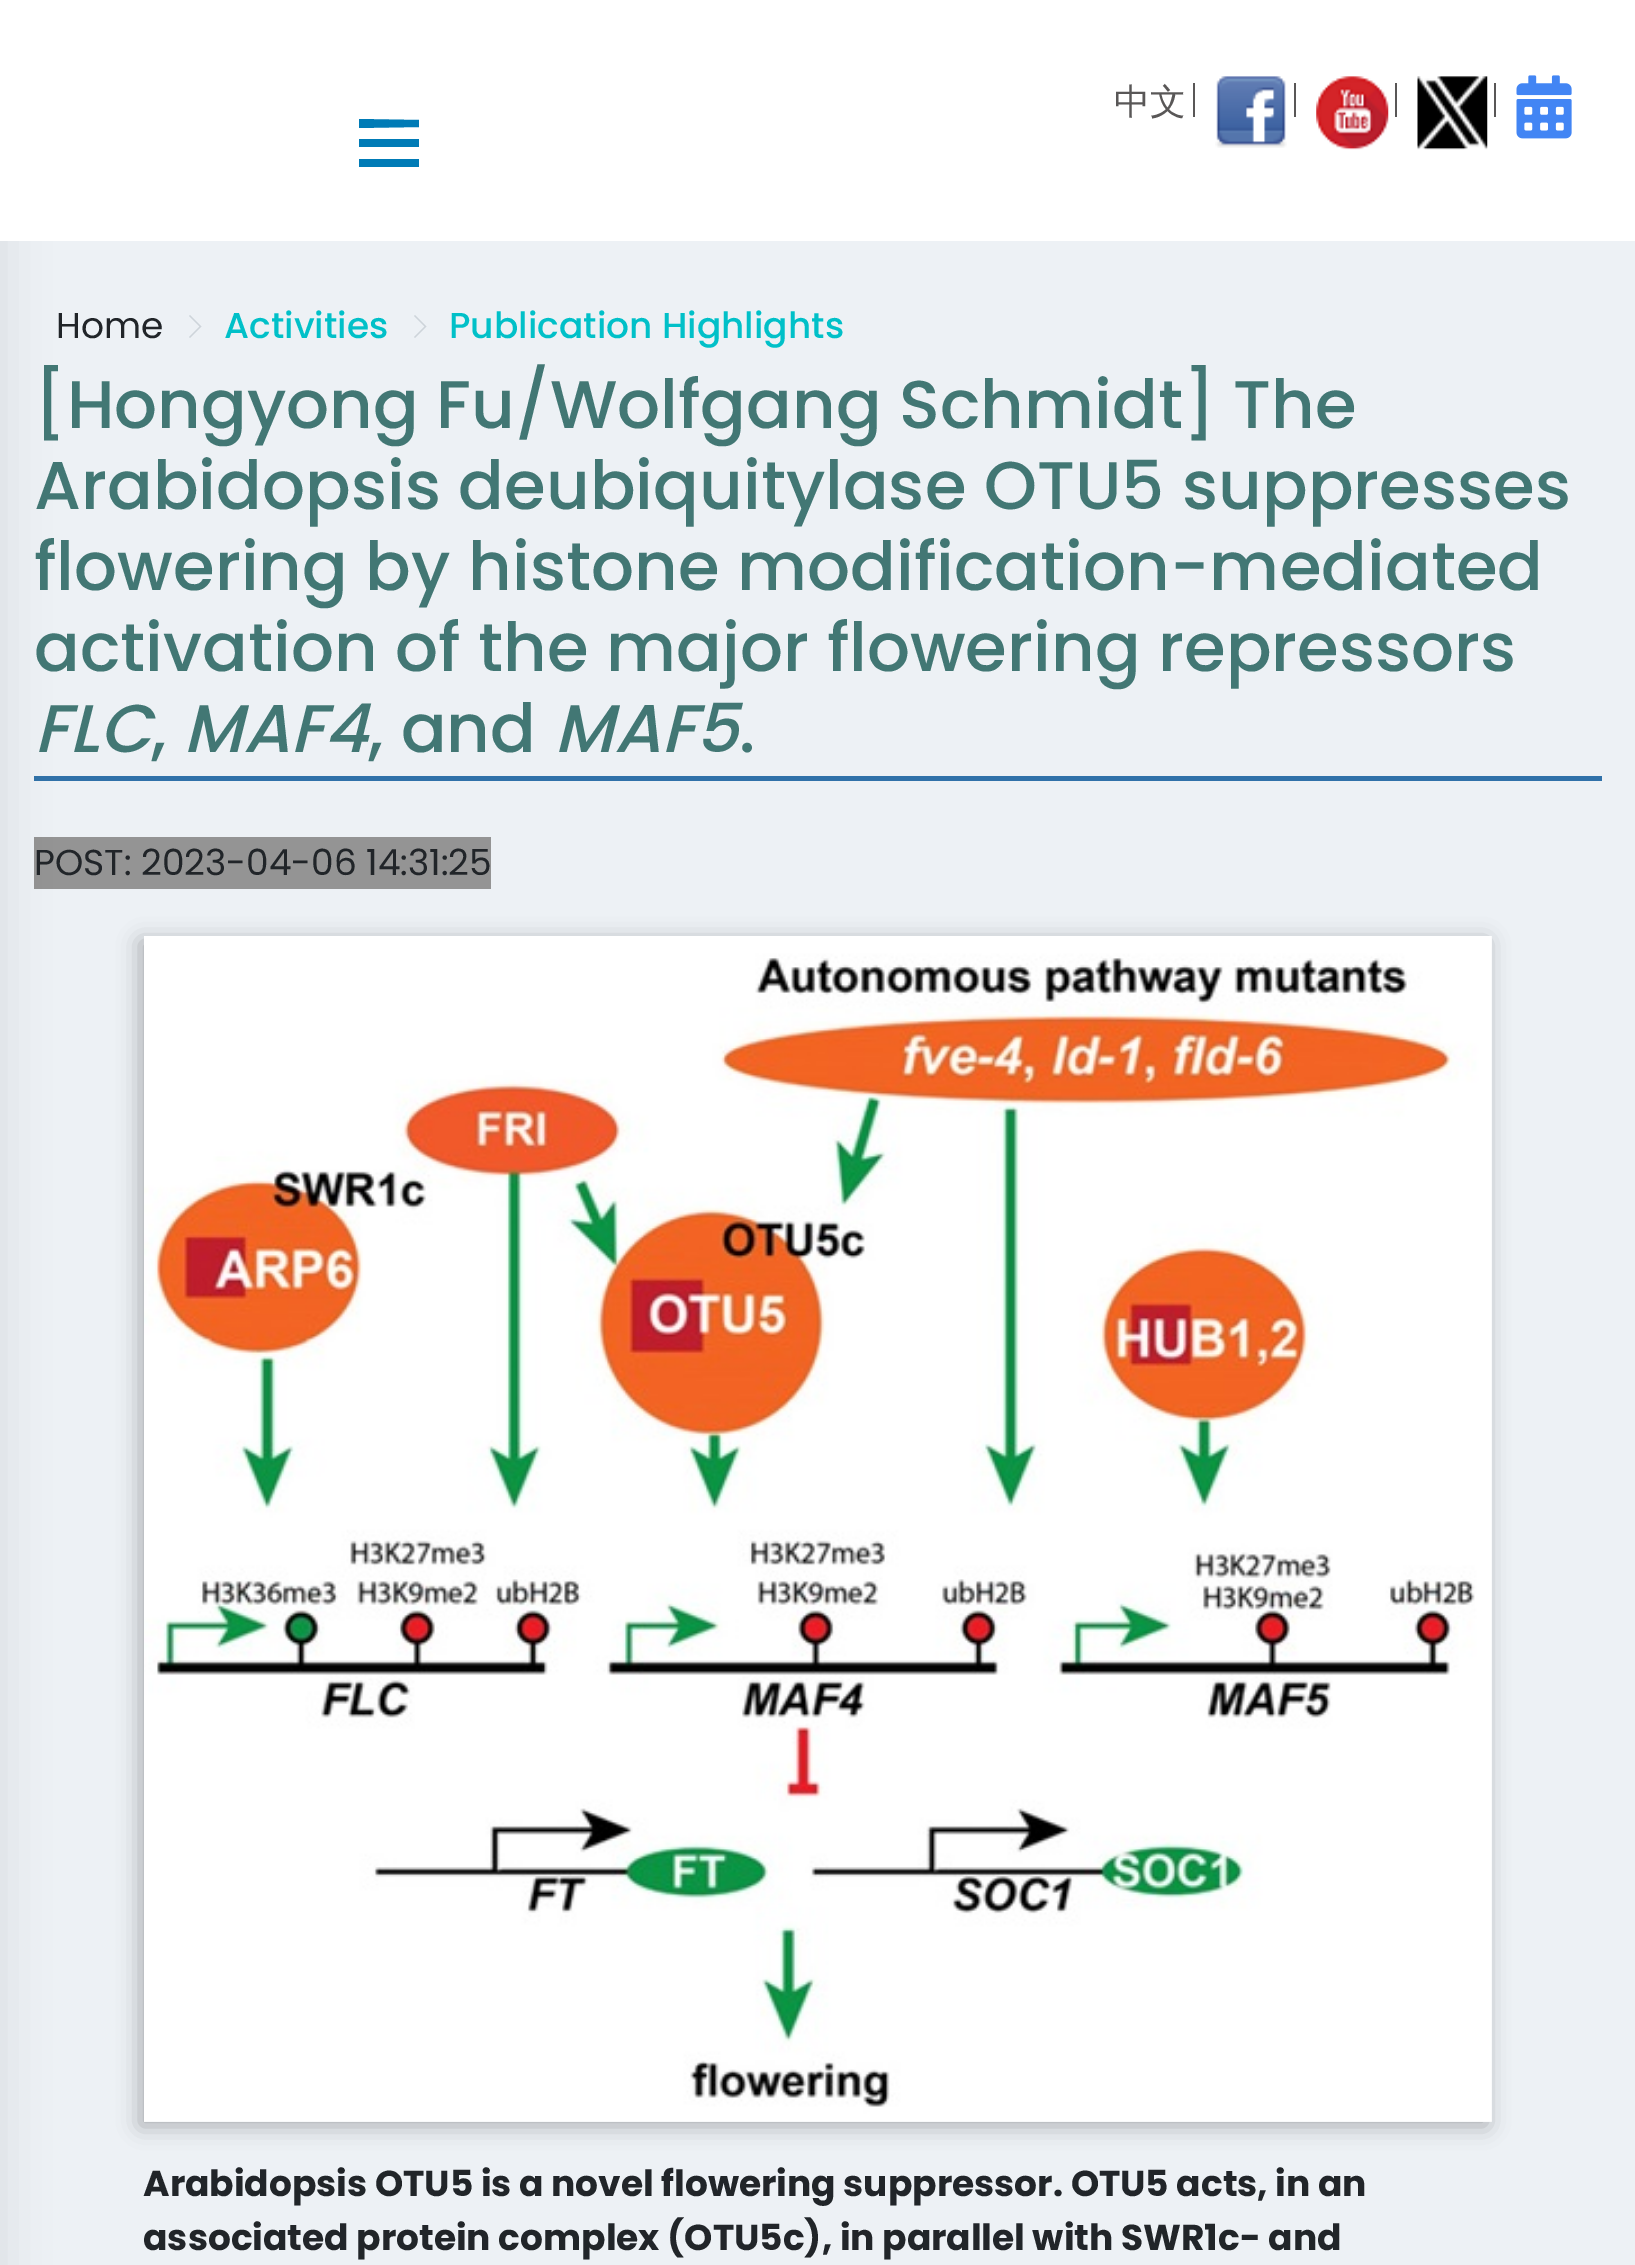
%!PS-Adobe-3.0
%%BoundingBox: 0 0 1635 2265
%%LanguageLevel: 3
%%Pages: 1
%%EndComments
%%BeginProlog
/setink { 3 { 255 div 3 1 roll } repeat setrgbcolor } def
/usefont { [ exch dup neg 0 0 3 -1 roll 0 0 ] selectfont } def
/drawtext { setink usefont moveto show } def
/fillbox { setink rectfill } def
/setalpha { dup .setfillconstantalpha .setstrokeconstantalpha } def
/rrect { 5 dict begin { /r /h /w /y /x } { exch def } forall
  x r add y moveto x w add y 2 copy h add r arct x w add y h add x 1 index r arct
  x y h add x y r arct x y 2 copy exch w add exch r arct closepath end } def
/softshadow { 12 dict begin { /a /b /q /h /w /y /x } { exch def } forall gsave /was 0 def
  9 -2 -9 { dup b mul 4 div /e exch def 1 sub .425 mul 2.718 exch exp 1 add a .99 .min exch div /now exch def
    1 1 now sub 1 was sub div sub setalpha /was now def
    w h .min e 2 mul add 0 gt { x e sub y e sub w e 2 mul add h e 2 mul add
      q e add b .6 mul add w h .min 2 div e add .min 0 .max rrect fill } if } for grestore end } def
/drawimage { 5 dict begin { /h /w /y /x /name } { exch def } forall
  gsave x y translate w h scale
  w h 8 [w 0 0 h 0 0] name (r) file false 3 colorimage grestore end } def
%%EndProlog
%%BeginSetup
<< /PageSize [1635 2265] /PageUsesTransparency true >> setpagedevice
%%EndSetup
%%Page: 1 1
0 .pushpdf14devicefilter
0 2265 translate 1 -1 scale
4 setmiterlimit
0 0 1635 2265 237 241 245 fillbox
34 776 1568 5 48 113 169 fillbox
34 837 457 52 148 148 148 fillbox
0 0 0 setink
-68 0 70 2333 0 22.5 0.08 softshadow
0 0 1635 241 255 255 255 fillbox
(中文) 1114 114 /WenQuanYiZenHei-Medium 36 89 87 87 drawtext
1193 83 2 34 89 87 87 fillbox
(assets/img1.rgb) 1215 76 72 72 drawimage
1294 83 2 34 89 87 87 fillbox
(assets/img2.rgb) 1316 76 73 74 drawimage
1395 83 2 34 89 87 87 fillbox
(assets/img3.rgb) 1417 76 71 74 drawimage
1494 83 2 34 89 87 87 fillbox
(assets/img4.rgb) 1516 75 56 64 drawimage
0 123 182 setink
419 120 moveto 419 127 lineto 359 128 lineto 359 119 lineto closepath 359 147 moveto 419 147 lineto 419 139 lineto 359 139 lineto closepath 359 167 moveto 419 167 lineto 419 159 lineto 359 159 lineto closepath fill
(Home) 56 338 /Poppins-Regular 36 33 37 41 drawtext
206 212 218 setink
201.5 326.5 moveto 190 338 lineto 189 337 lineto 199.5 326.5 lineto 189 316 lineto 190 315 lineto closepath fill
(Activities) 224 338 /Poppins-Medium 36 1 192 200 drawtext
206 212 218 setink
426.5 326.5 moveto 415 338 lineto 414 337 lineto 424.5 326.5 lineto 414 316 lineto 415 315 lineto closepath fill
(Publication Highlights) 449 338 /Poppins-Medium 36 1 192 200 drawtext
([Hongyong Fu/Wolfgang Schmidt] The) 34 428 /Poppins-Medium 67.5 66 119 116 drawtext
(Arabidopsis deubiquitylase OTU5 suppresses) 34 509 /Poppins-Medium 67.5 66 119 116 drawtext
(flowering by histone modification-mediated) 34 590 /Poppins-Medium 67.5 66 119 116 drawtext
(activation of the major flowering repressors) 34 671 /Poppins-Medium 67.5 66 119 116 drawtext
(FLC) 34 752 /Poppins-MediumItalic 67.5 66 119 116 drawtext
(,) 151 752 /Poppins-Medium 67.5 66 119 116 drawtext
(MAF4) 183 752 /Poppins-MediumItalic 67.5 66 119 116 drawtext
(, and) 368 752 /Poppins-Medium 67.5 66 119 116 drawtext
(MAF5) 554 752 /Poppins-MediumItalic 67.5 66 119 116 drawtext
(.) 739 752 /Poppins-Medium 67.5 66 119 116 drawtext
(POST: 2023-04-06 14:31:25) 34 875 /Poppins-Regular 36 33 37 41 drawtext
68 68 68 setink
140 941 1347 1185 0 11 0.4 softshadow
(assets/img5.rgb) 144 936 1348 1186 drawimage
(Arabidopsis OTU5 is a novel flowering suppressor. OTU5 acts, in an) 143 2196 /Poppins-Bold 36 33 37 41 drawtext
(associated protein complex \(OTU5c\), in parallel with SWR1c- and) 143 2250 /Poppins-Bold 36 33 37 41 drawtext
.poppdf14devicefilter showpage
%%EOF
